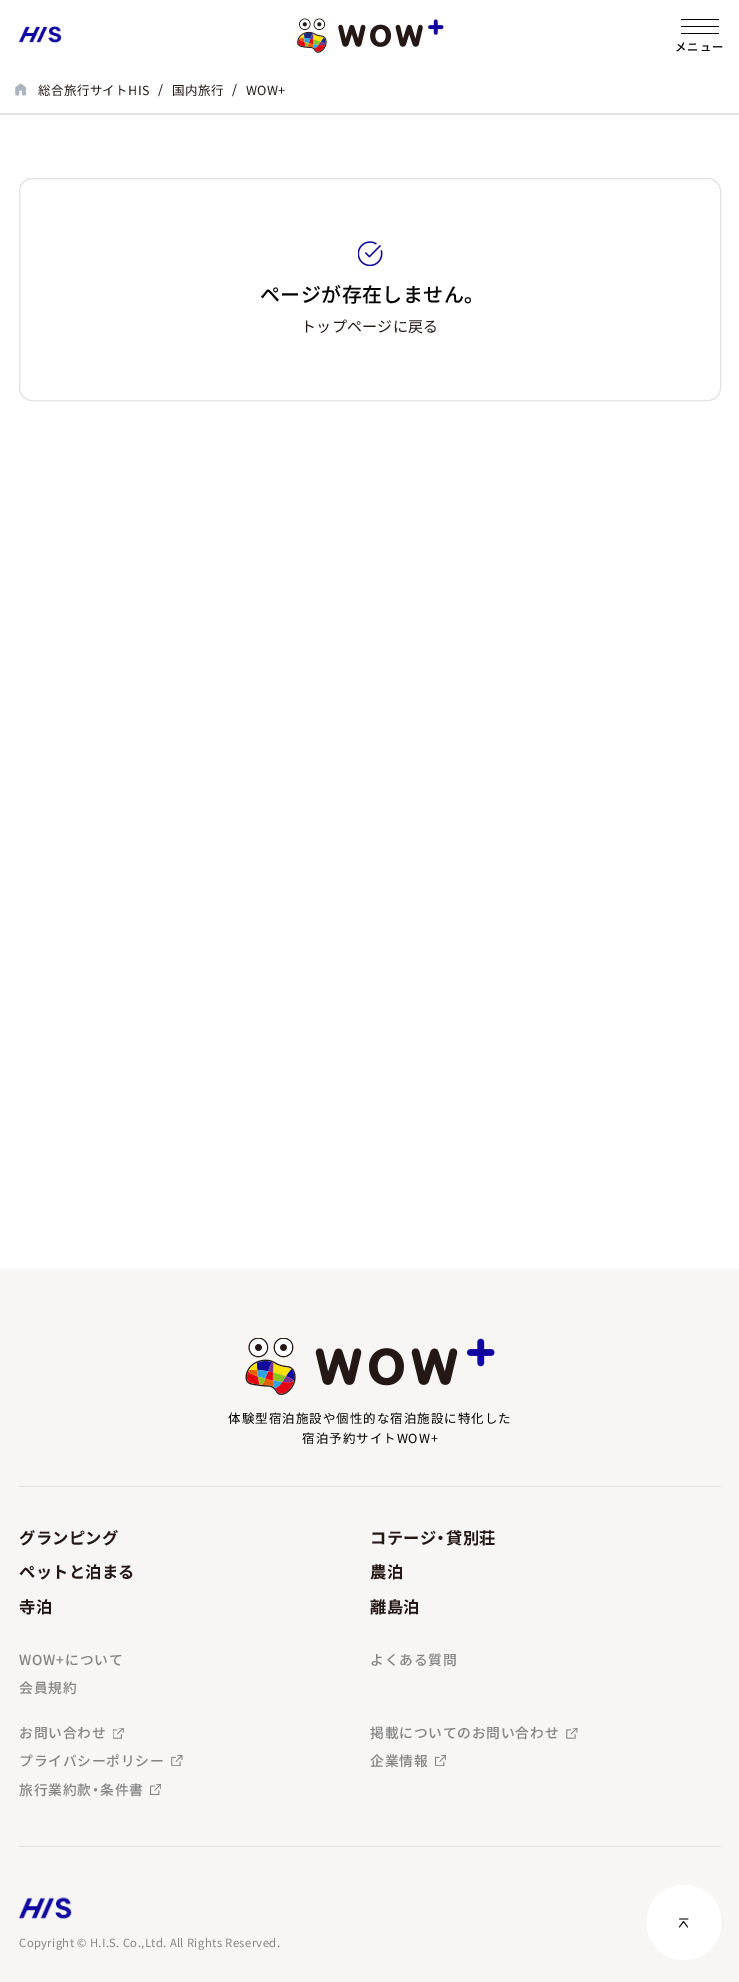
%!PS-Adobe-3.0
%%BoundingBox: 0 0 739 1982
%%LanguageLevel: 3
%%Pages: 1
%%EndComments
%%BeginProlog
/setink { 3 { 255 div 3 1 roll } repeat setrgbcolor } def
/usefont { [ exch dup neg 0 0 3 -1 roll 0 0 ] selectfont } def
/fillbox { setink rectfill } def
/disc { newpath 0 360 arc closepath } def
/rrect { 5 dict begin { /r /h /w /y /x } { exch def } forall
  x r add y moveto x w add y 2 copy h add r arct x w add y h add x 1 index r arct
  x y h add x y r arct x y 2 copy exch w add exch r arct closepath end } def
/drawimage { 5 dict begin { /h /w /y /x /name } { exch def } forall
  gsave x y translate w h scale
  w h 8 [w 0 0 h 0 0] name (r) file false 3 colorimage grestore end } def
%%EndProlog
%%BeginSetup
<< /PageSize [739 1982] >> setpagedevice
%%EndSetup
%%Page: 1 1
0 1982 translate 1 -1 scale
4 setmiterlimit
0 0 739 1982 255 255 255 fillbox
0 113 739 2 226 226 226 fillbox
(assets/img1.rgb) 18 26 44 17 drawimage
(assets/img2.rgb) 297 18 147 35 drawimage
681 19 38 1 0 0 0 fillbox
681 26 38 1 0 0 0 fillbox
681 33 38 1 0 0 0 fillbox
/NotoSansJP-Medium 11.25 usefont
675 51 moveto 1 0 (メニュー) ashow
(assets/img3.rgb) 15 83 12 13 drawimage
/NotoSansJP-Regular 12.5 usefont
35 24 21 setink
38 95 moveto 0.4 0 (総合旅行サイトHIS) ashow
0 0 0 setink
158 94 moveto 0.4 0 (/) ashow
35 24 21 setink
172 95 moveto 0.4 0 (国内旅行) ashow
0 0 0 setink
232 94 moveto 0.4 0 (/) ashow
35 24 21 setink
246 95 moveto 0.4 0 (WOW+) ashow
226 226 226 setink
19.5 178.5 701 222 12.5 rrect stroke
(assets/img4.rgb) 358 241 25 25 drawimage
/NotoSansJP-Medium 20 usefont
0 0 0 setink
260 302 moveto 0.4 0 (ページが存在しません) ashow
/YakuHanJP-Medium 20 usefont
464 302 moveto 0.4 0 (。) ashow
/NotoSansJP-Regular 15 usefont
35 24 21 setink
301 332 moveto 0.25 0 (トップページに戻る) ashow
0 1269 739 713 248 246 245 fillbox
(assets/img5.rgb) 245 1338 250 57 drawimage
/NotoSansJP-Regular 12.5 usefont
0 0 0 setink
228 1423 moveto 1 0 (体験型宿泊施設や個性的な宿泊施設に特化した) ashow
302 1443 moveto 1 0 (宿泊予約サイトWOW+) ashow
19 1486 702 1 226 226 226 fillbox
/NotoSansJP-Bold 16.25 usefont
35 24 21 setink
19 1544 moveto 0.25 0 (グランピング) ashow
370 1544 moveto 0.25 0 (コテージ) ashow
/YakuHanJP-Bold 16.25 usefont
436 1544 moveto 0.25 0 (・) ashow
/NotoSansJP-Bold 16.25 usefont
446 1544 moveto 0.25 0 (貸別荘) ashow
19 1578 moveto 0.25 0 (ペットと泊まる) ashow
370 1578 moveto 0.25 0 (農泊) ashow
19 1613 moveto 0.25 0 (寺泊) ashow
370 1613 moveto 0.25 0 (離島泊) ashow
/NotoSansJP-Medium 13.75 usefont
132 132 132 setink
19 1665 moveto 0.8 0 (WOW+について) ashow
370 1665 moveto 0.8 0 (よくある質問) ashow
19 1693 moveto 0.8 0 (会員規約) ashow
(assets/img6.rgb) 113 1728 11 11 drawimage
19 1738 moveto 0.8 0 (お問い合わせ) ashow
(assets/img7.rgb) 566 1728 12 11 drawimage
370 1738 moveto 0.8 0 (掲載についてのお問い合わせ) ashow
(assets/img8.rgb) 171 1755 12 11 drawimage
19 1766 moveto 0.8 0 (プライバシーポリシー) ashow
(assets/img9.rgb) 435 1755 11 11 drawimage
370 1766 moveto 0.8 0 (企業情報) ashow
(assets/img10.rgb) 150 1784 11 11 drawimage
19 1795 moveto 0.8 0 (旅行業約款) ashow
/YakuHanJP-Medium 13.75 usefont
92 1795 moveto 0.8 0 (・) ashow
/NotoSansJP-Medium 13.75 usefont
100 1795 moveto 0.8 0 (条件書) ashow
19 1846 702 1 226 226 226 fillbox
(assets/img11.rgb) 18 1897 54 22 drawimage
gsave
646 1885 75 75 rectclip
255 255 255 setink
684 1922.5 37.5 disc fill
grestore
0 0 0 setink
0.8 setlinewidth
1 setlinecap
1 setlinejoin
687.5 1927 moveto 683.5 1921.5 lineto 679.5 1927 lineto 679.5 1919 moveto 688 1919 lineto stroke
/NotoSansJP-Regular 11.25 usefont
132 132 132 setink
19 1947 moveto 0.4 0 (Copyright © H.I.S. Co.,Ltd. All Rights Reserved.) ashow
showpage
%%EOF
